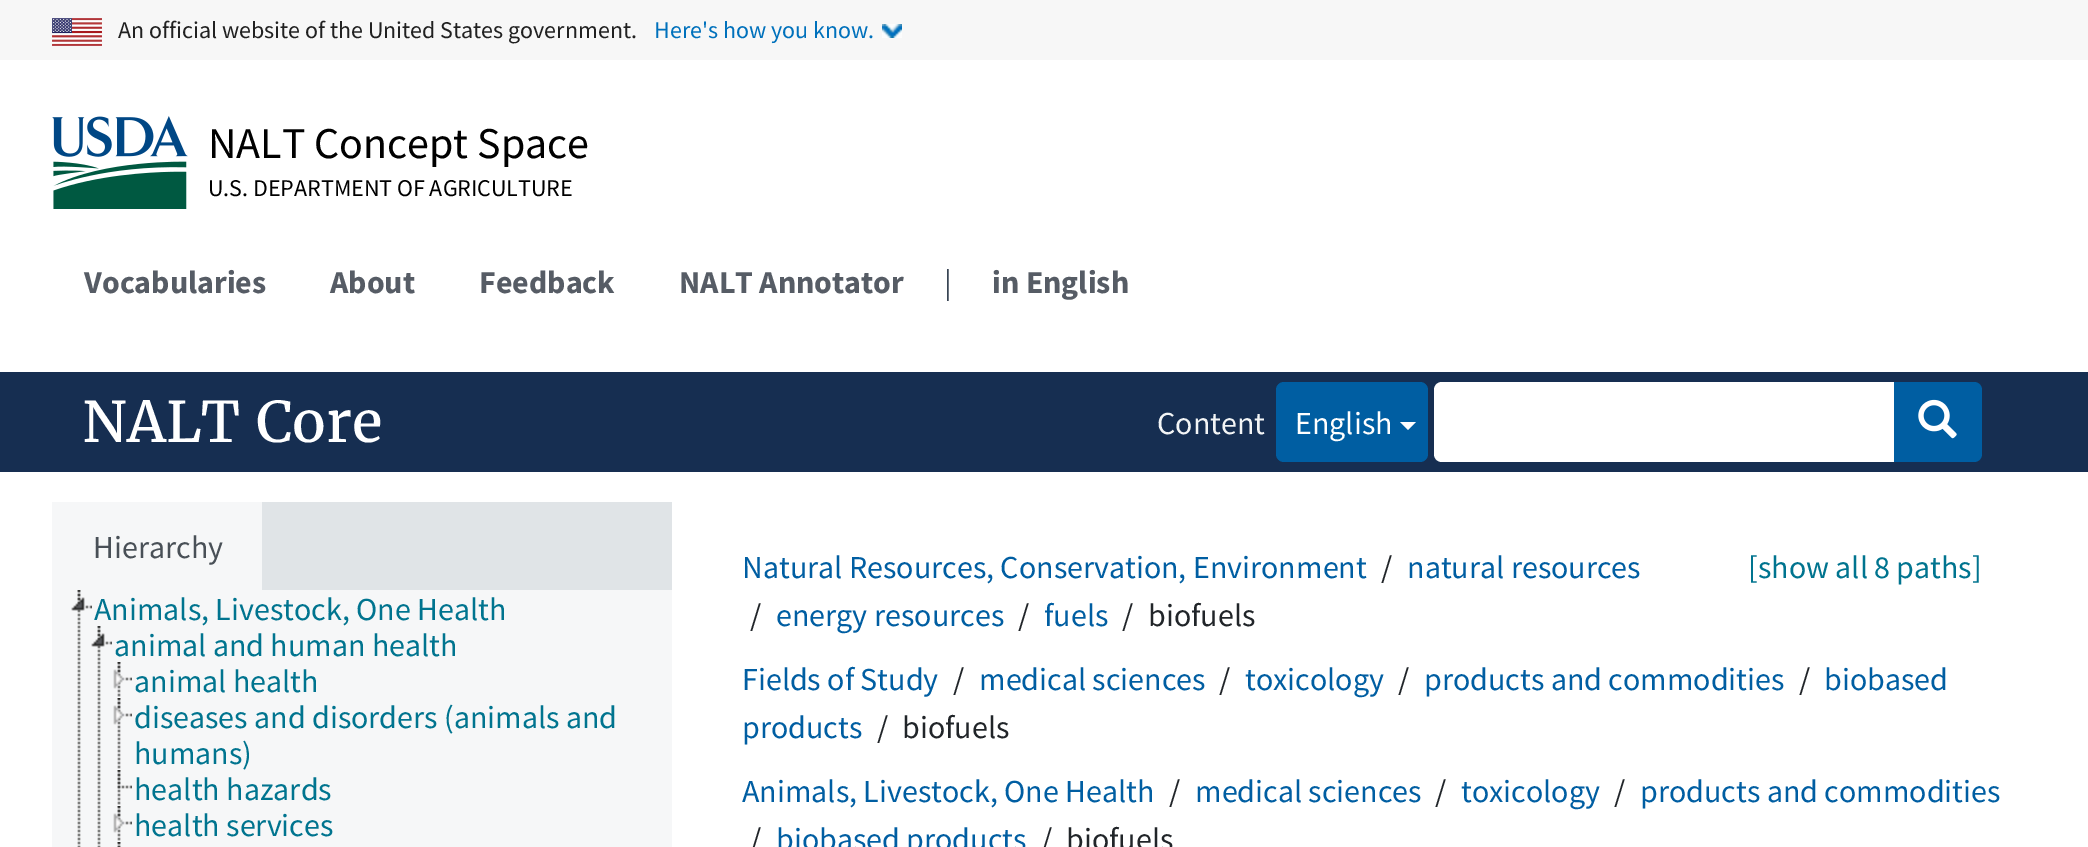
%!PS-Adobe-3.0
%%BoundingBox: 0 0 2088 847
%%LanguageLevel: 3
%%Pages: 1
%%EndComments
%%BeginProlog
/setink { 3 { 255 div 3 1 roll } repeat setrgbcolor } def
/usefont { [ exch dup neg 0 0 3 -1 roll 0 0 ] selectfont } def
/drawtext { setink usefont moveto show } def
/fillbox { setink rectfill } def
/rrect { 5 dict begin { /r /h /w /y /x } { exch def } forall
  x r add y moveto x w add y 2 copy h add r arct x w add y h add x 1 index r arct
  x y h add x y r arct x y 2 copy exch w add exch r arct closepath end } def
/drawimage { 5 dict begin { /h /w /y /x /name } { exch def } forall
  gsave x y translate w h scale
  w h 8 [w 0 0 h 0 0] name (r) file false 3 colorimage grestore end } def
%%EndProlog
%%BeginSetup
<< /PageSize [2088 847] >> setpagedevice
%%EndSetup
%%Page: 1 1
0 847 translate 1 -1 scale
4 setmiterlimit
0 0 2088 847 255 255 255 fillbox
0 0 2088 60 247 247 247 fillbox
(assets/img1.rgb) 52 18 50 28 drawimage
(An official website of the United States government.) 118 38 /SourceSansPro-Regular 24 33 33 33 drawtext
(assets/img2.rgb) 882 24 20 14 drawimage
(Here's how you know.) 654 38 /SourceSansPro-Regular 24 0 113 188 drawtext
(assets/img3.rgb) 52 116 136 93 drawimage
(NALT Concept Space) 208 158 /SourceSansPro-Regular 44 0 0 0 drawtext
(U.S. DEPARTMENT OF AGRICULTURE) 208 196 /SourceSansPro-Regular 24 0 0 0 drawtext
(Vocabularies) 84 293 /SourceSansPro-Bold 32 86 92 101 drawtext
(About) 330 293 /SourceSansPro-Bold 32 86 92 101 drawtext
(Feedback) 479 293 /SourceSansPro-Bold 32 86 92 101 drawtext
(NALT Annotator) 679 293 /SourceSansPro-Bold 32 86 92 101 drawtext
(|) 944 293 /SourceSansPro-Regular 32 57 69 84 drawtext
(in English) 992 293 /SourceSansPro-Bold 32 86 92 101 drawtext
0 372 2088 100 22 46 81 fillbox
(NALT Core) 82 442 /Merriweather-Regular 56 255 255 255 drawtext
(Content) 1157 434 /SourceSansPro-Regular 32 243 245 246 drawtext
0 94 162 setink
1276 382 152 80 8 rrect fill
(English) 1295 434 /SourceSansPro-Regular 32 255 255 255 drawtext
1400 422 moveto 1416 422 lineto 1408 430 lineto closepath fill
1442 382 moveto 1896 382 lineto 1896 462 lineto 1442 462 lineto 1437.5 462 1434 458.5 1434 454 curveto 1434 390 lineto 1434 385.5 1437.5 382 1442 382 curveto closepath fill
0 94 162 setink
1894 382 moveto 1974 382 lineto 1978.5 382 1982 385.5 1982 390 curveto 1982 454 lineto 1982 458.5 1978.5 462 1974 462 curveto 1894 462 lineto closepath fill
(assets/img4.rgb) 1918 399 39 40 drawimage
262 502 410 88 224 228 231 fillbox
52 502 210 88 246 247 248 fillbox
(Hierarchy) 93 558 /SourceSansPro-Regular 32 73 80 87 drawtext
52 590 620 257 246 247 248 fillbox
(assets/img5.rgb) 77 590 4 257 drawimage
(assets/img6.rgb) 71 590 21 21 drawimage
(Animals, Livestock, One Health) 94 620 /SourceSansPro-Regular 32 0 116 143 drawtext
(assets/img7.rgb) 97 626 4 221 drawimage
(assets/img6.rgb) 91 626 21 21 drawimage
(animal and human health) 114 656 /SourceSansPro-Regular 32 0 116 143 drawtext
(assets/img8.rgb) 117 662 4 35 drawimage
(assets/img9.rgb) 113 662 19 27 drawimage
(animal health) 134 692 /SourceSansPro-Regular 32 0 116 143 drawtext
(assets/img10.rgb) 117 698 4 71 drawimage
(assets/img9.rgb) 113 698 19 27 drawimage
(diseases and disorders \(animals and) 134 728 /SourceSansPro-Regular 32 0 116 143 drawtext
(humans\)) 134 764 /SourceSansPro-Regular 32 0 116 143 drawtext
(assets/img8.rgb) 117 770 4 35 drawimage
(assets/img11.rgb) 117 770 15 19 drawimage
(health hazards) 134 800 /SourceSansPro-Regular 32 0 116 143 drawtext
(assets/img8.rgb) 117 806 4 35 drawimage
(assets/img9.rgb) 113 806 19 27 drawimage
(health services) 134 836 /SourceSansPro-Regular 32 0 116 143 drawtext
(assets/img12.rgb) 117 842 4 5 drawimage
(assets/img13.rgb) 117 842 4 5 drawimage
(Natural Resources, Conservation, Environment) 742 578 /SourceSansPro-Regular 32 0 94 162 drawtext
(/) 1381 578 /SourceSansPro-Regular 32 33 37 41 drawtext
(natural resources) 1407 578 /SourceSansPro-Regular 32 0 94 162 drawtext
(/) 750 626 /SourceSansPro-Regular 32 33 37 41 drawtext
(energy resources) 776 626 /SourceSansPro-Regular 32 0 94 162 drawtext
(/) 1018 626 /SourceSansPro-Regular 32 33 37 41 drawtext
(fuels) 1044 626 /SourceSansPro-Regular 32 0 94 162 drawtext
(/) 1122 626 /SourceSansPro-Regular 32 33 37 41 drawtext
(biofuels) 1148 626 /SourceSansPro-Regular 32 33 37 41 drawtext
([show all 8 paths]) 1748 578 /SourceSansPro-Regular 32 0 116 143 drawtext
(Fields of Study) 742 690 /SourceSansPro-Regular 32 0 94 162 drawtext
(/) 953 690 /SourceSansPro-Regular 32 33 37 41 drawtext
(medical sciences) 979 690 /SourceSansPro-Regular 32 0 94 162 drawtext
(/) 1219 690 /SourceSansPro-Regular 32 33 37 41 drawtext
(toxicology) 1245 690 /SourceSansPro-Regular 32 0 94 162 drawtext
(/) 1398 690 /SourceSansPro-Regular 32 33 37 41 drawtext
(products and commodities) 1424 690 /SourceSansPro-Regular 32 0 94 162 drawtext
(/) 1799 690 /SourceSansPro-Regular 32 33 37 41 drawtext
(biobased) 1824 690 /SourceSansPro-Regular 32 0 94 162 drawtext
(products) 742 738 /SourceSansPro-Regular 32 0 94 162 drawtext
(/) 877 738 /SourceSansPro-Regular 32 33 37 41 drawtext
(biofuels) 902 738 /SourceSansPro-Regular 32 33 37 41 drawtext
(Animals, Livestock, One Health) 742 802 /SourceSansPro-Regular 32 0 94 162 drawtext
(/) 1169 802 /SourceSansPro-Regular 32 33 37 41 drawtext
(medical sciences) 1195 802 /SourceSansPro-Regular 32 0 94 162 drawtext
(/) 1435 802 /SourceSansPro-Regular 32 33 37 41 drawtext
(toxicology) 1461 802 /SourceSansPro-Regular 32 0 94 162 drawtext
(/) 1614 802 /SourceSansPro-Regular 32 33 37 41 drawtext
(products and commodities) 1640 802 /SourceSansPro-Regular 32 0 94 162 drawtext
(/) 750 850 /SourceSansPro-Regular 32 33 37 41 drawtext
(biobased products) 776 850 /SourceSansPro-Regular 32 0 94 162 drawtext
(/) 1041 850 /SourceSansPro-Regular 32 33 37 41 drawtext
(biofuels) 1066 850 /SourceSansPro-Regular 32 33 37 41 drawtext
showpage
%%EOF
